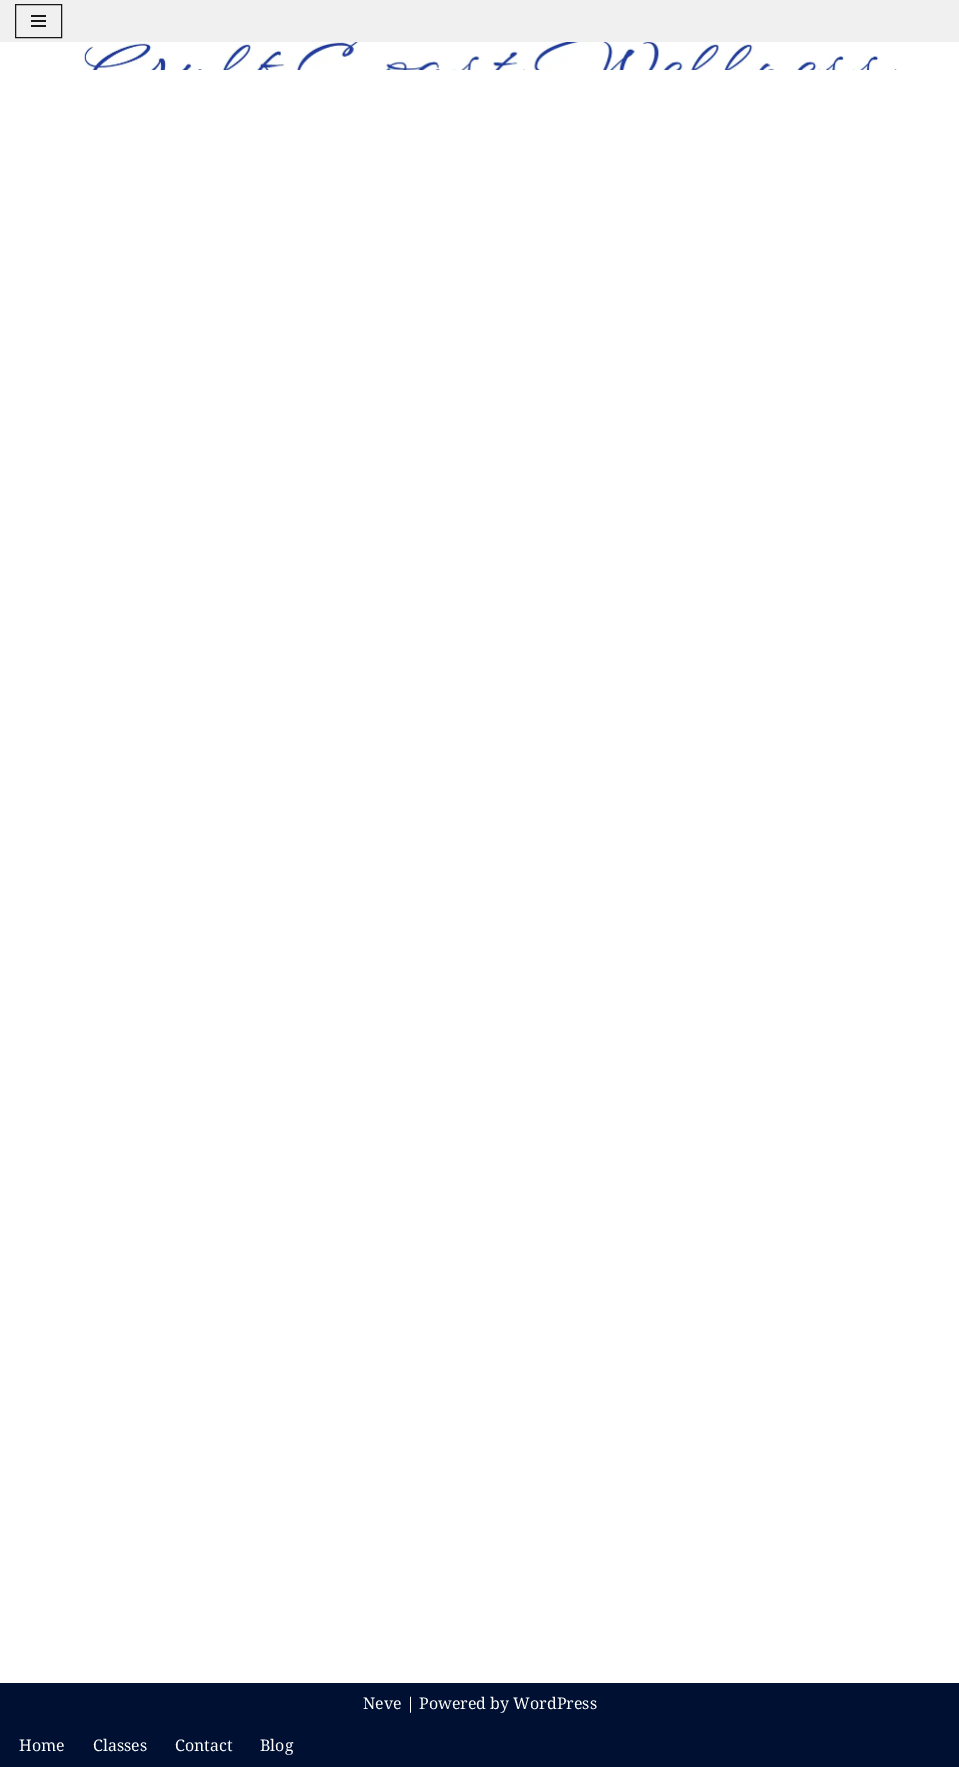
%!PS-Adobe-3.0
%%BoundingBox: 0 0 959 1767
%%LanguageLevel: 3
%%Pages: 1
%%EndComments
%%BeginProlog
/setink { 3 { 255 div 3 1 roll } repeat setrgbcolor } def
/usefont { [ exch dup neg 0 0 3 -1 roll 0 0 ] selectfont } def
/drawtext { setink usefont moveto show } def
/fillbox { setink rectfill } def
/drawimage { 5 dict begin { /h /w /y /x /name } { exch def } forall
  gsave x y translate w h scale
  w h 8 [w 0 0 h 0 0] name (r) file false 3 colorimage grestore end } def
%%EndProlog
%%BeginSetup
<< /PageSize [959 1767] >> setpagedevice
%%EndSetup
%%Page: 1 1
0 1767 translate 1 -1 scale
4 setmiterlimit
0 0 959 1767 255 255 255 fillbox
0 0 959 42 240 240 240 fillbox
25 25 25 setink
15.5 4.5 46 33 rectstroke
31 15 15 2 25 25 25 fillbox
31 20 15 2 25 25 25 fillbox
31 25 15 2 25 25 25 fillbox
(assets/img1.rgb) 84 42 813 28 drawimage
0 1683 959 84 0 16 50 fillbox
(Neve | Powered by WordPress) 363 1709 /DroidSerif-Regular 16 255 255 255 drawtext
(Home) 19 1751 /DroidSerif-Regular 16 255 255 255 drawtext
(Classes) 93 1751 /DroidSerif-Regular 16 255 255 255 drawtext
(Contact) 175 1751 /DroidSerif-Regular 16 255 255 255 drawtext
(Blog) 260 1751 /DroidSerif-Regular 16 255 255 255 drawtext
showpage
%%EOF
